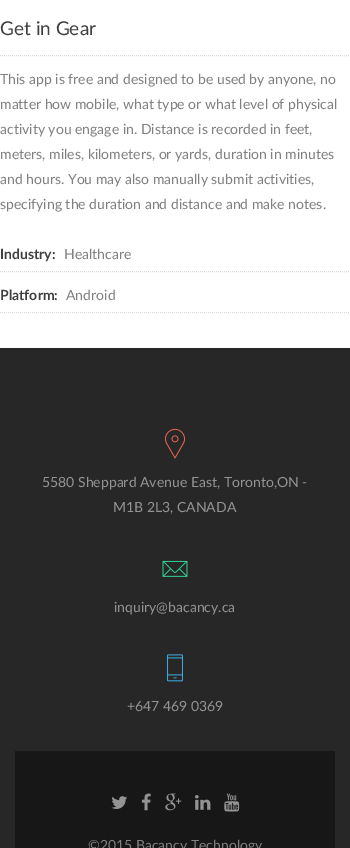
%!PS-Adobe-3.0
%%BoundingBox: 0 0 350 848
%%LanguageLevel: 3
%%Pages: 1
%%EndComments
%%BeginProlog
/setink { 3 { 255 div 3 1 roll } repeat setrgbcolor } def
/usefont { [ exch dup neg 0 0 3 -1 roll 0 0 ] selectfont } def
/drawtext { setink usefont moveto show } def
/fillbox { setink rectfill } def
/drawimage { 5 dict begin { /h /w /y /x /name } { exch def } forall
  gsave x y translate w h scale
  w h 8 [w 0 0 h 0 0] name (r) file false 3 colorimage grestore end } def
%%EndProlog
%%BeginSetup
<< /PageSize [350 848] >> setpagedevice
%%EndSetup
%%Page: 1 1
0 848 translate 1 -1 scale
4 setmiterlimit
0 0 350 848 39 39 39 fillbox
0 0 350 348 255 255 255 fillbox
218 218 218 setink
[1 1] 0 setdash
0 55.5 moveto 350 55.5 lineto stroke
(Get in Gear) 0 35 /Lato-Regular 19 64 64 64 drawtext
(This app is free and designed to be used by anyone, no) 0 84 /Lato-Regular 14 128 128 128 drawtext
(matter how mobile, what type or what level of physical) 0 109 /Lato-Regular 14 128 128 128 drawtext
(activity you engage in. Distance is recorded in feet,) 0 134 /Lato-Regular 14 128 128 128 drawtext
(meters, miles, kilometers, or yards, duration in minutes) 0 159 /Lato-Regular 14 128 128 128 drawtext
(and hours. You may also manually submit activities,) 0 184 /Lato-Regular 14 128 128 128 drawtext
(specifying the duration and distance and make notes.) 0 209 /Lato-Regular 14 128 128 128 drawtext
218 218 218 setink
0 271.5 moveto 350 271.5 lineto stroke
(Industry:) 0 259 /Lato-Bold 14 64 64 64 drawtext
(Healthcare) 64 259 /Lato-Regular 14 128 128 128 drawtext
218 218 218 setink
0 312.5 moveto 350 312.5 lineto stroke
(Platform:) 0 300 /Lato-Bold 14 64 64 64 drawtext
(Android) 66 300 /Lato-Regular 14 128 128 128 drawtext
(assets/img1.rgb) 165 428 20 31 drawimage
(5580 Sheppard Avenue East, Toronto,ON -) 42 487 /Lato-Regular 14 147 147 147 drawtext
(M1B 2L3, CANADA) 113 512 /Lato-Regular 14 147 147 147 drawtext
(assets/img2.rgb) 162 560 26 17 drawimage
(inquiry@bacancy.ca) 114 612 /Lato-Regular 14 147 147 147 drawtext
(assets/img3.rgb) 167 654 16 28 drawimage
(+647 469 0369) 127 711 /Lato-Regular 14 147 147 147 drawtext
15 751 320 97 23 23 23 fillbox
(assets/img4.rgb) 111 796 17 13 drawimage
(assets/img5.rgb) 141 793 10 18 drawimage
(assets/img6.rgb) 165 793 17 18 drawimage
(assets/img7.rgb) 195 795 16 15 drawimage
(assets/img8.rgb) 224 793 16 19 drawimage
(©2015 Bacancy Technology) 88 850 /Lato-Regular 14 128 128 128 drawtext
showpage
%%EOF
